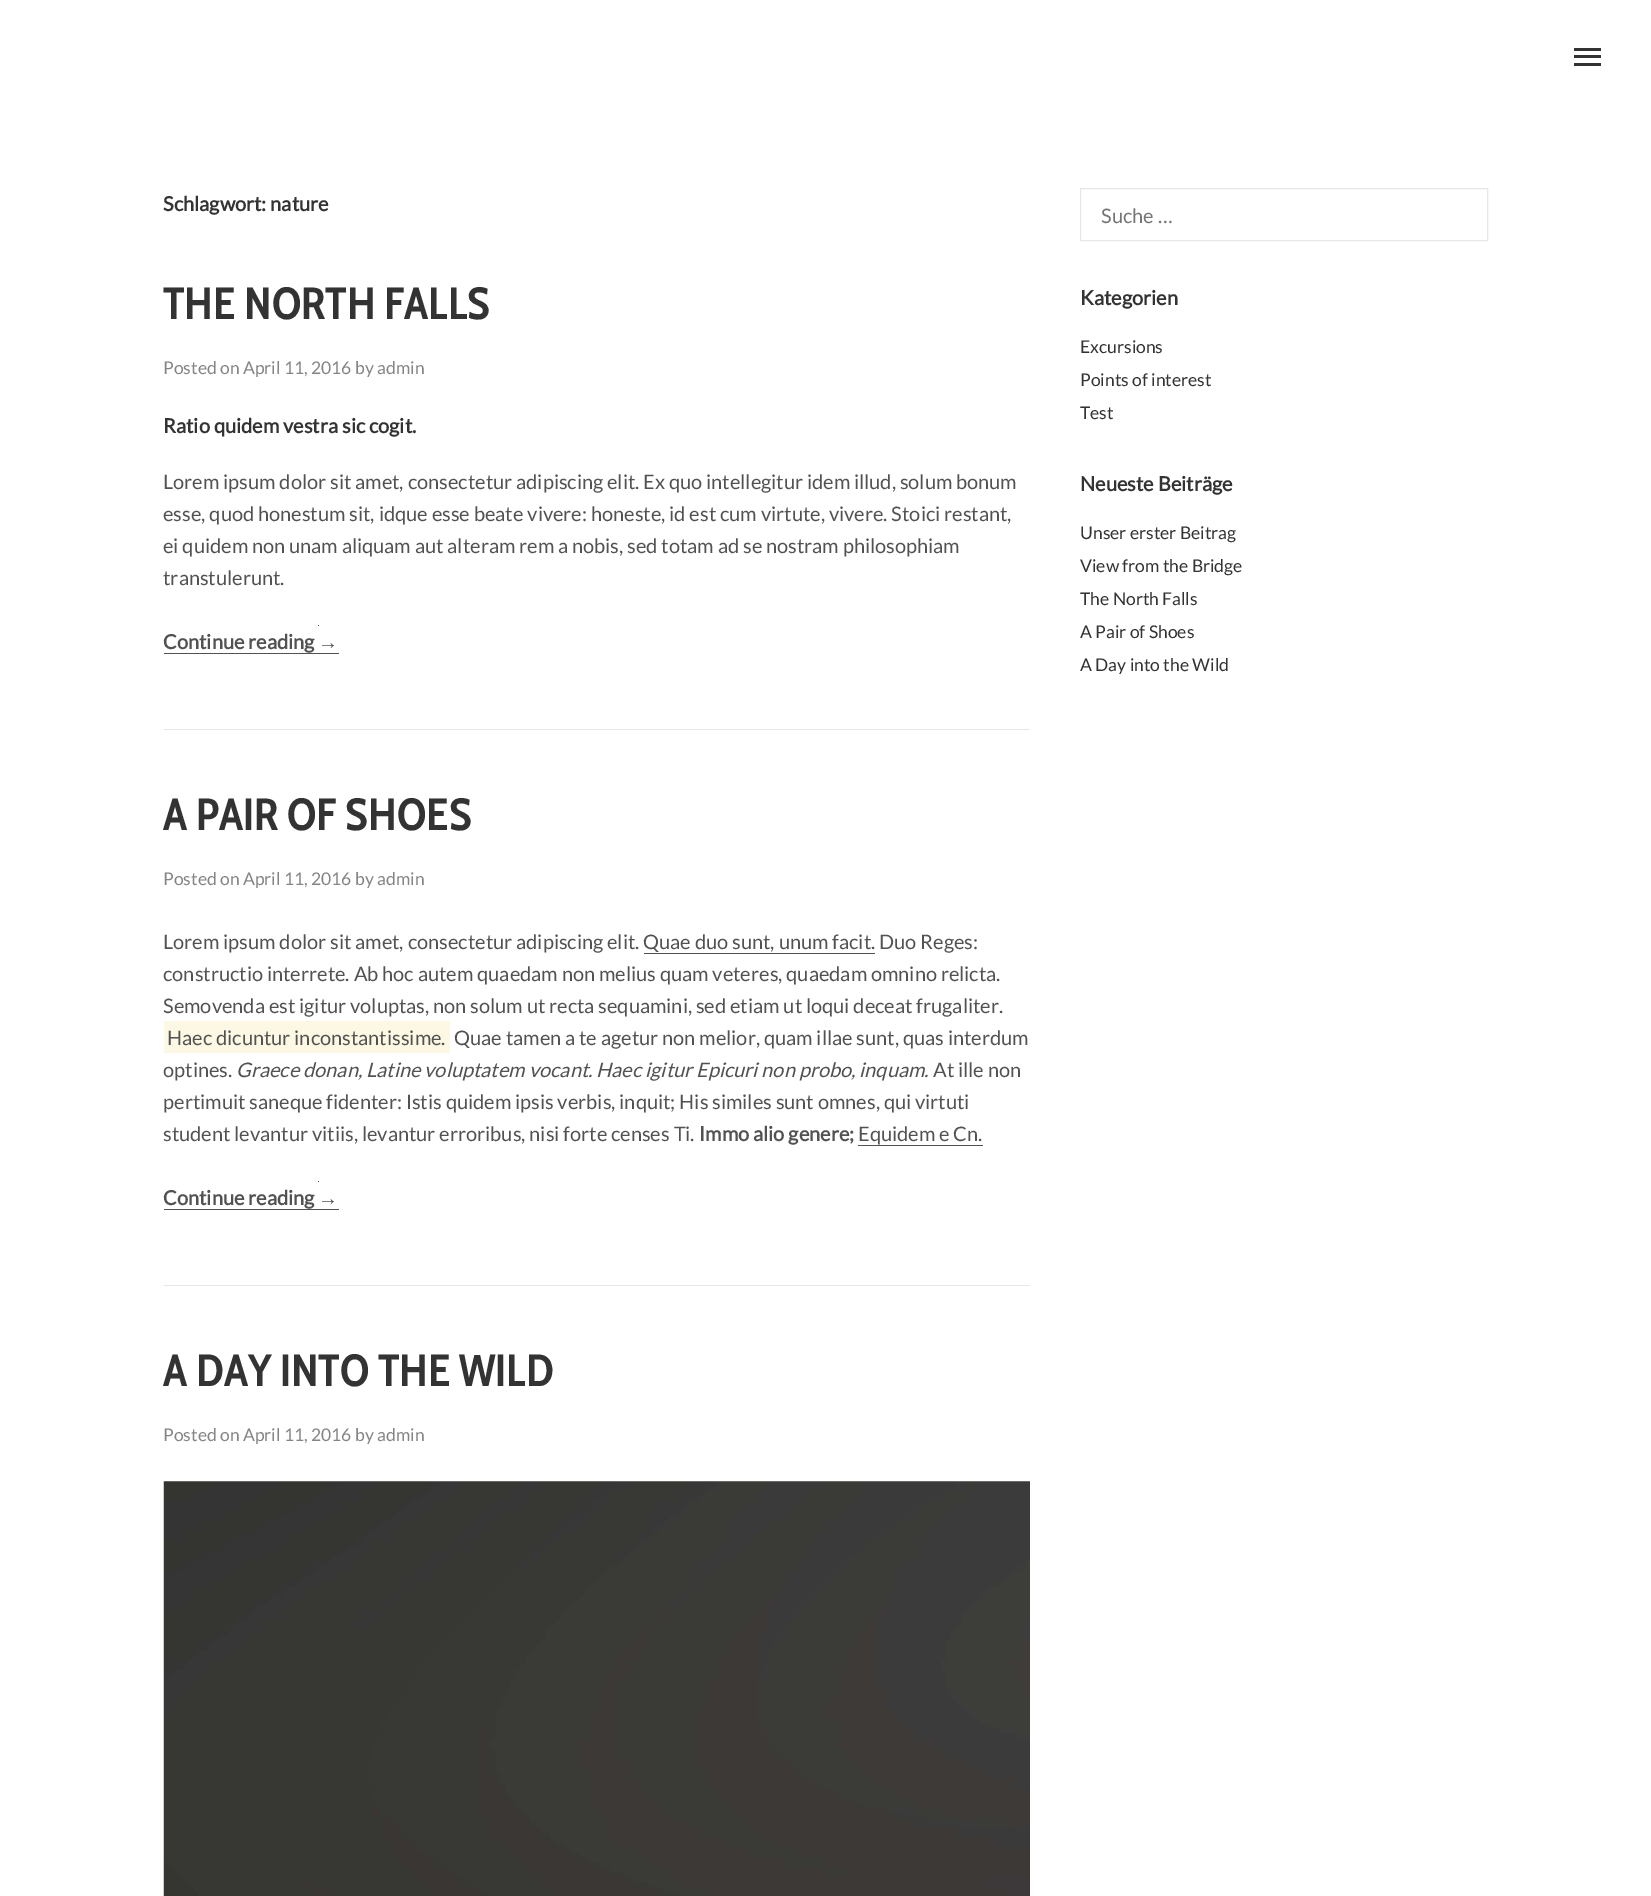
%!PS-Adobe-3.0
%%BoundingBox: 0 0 1651 1896
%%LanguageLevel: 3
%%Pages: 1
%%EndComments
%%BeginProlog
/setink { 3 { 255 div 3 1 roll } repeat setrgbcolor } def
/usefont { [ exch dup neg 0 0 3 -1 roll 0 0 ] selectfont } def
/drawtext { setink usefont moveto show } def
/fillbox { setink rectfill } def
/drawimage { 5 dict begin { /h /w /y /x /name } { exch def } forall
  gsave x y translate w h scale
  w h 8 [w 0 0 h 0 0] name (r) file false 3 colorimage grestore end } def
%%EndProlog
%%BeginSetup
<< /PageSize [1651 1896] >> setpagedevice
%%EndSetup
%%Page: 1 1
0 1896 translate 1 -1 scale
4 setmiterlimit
0 0 1651 1896 255 255 255 fillbox
1574 55 27 3 51 51 51 fillbox
1574 48 27 3 51 51 51 fillbox
1574 63 27 3 51 51 51 fillbox
(Schlagwort: nature) 163 211 /Lato-Bold 20 51 51 51 drawtext
(THE NORTH FALLS) 163 319 /CabinCondensed-Bold 45 51 51 51 drawtext
(Posted on April 11, 2016 by admin) 163 374 /Lato-Regular 17.5 133 133 133 drawtext
(Ratio quidem vestra sic cogit.) 163 433 /Lato-Bold 20 51 51 51 drawtext
(Lorem ipsum dolor sit amet, consectetur adipiscing elit. Ex quo intellegitur idem illud, solum bonum) 163 489 /Lato-Regular 20 82 82 82 drawtext
(esse, quod honestum sit, idque esse beate vivere: honeste, id est cum virtute, vivere. Stoici restant,) 163 521 /Lato-Regular 20 82 82 82 drawtext
(ei quidem non unam aliquam aut alteram rem a nobis, sed totam ad se nostram philosophiam) 163 553 /Lato-Regular 20 82 82 82 drawtext
(transtulerunt.) 163 585 /Lato-Regular 20 82 82 82 drawtext
(Continue reading) 163 649 /Lato-Bold 20 82 82 82 drawtext
318 625 1 1 82 82 82 fillbox
(→) 318 649 /LiberationSerif-Bold 20 82 82 82 drawtext
164 653 175 1 82 82 82 fillbox
164 729 866 1 231 231 231 fillbox
(A PAIR OF SHOES) 163 830 /CabinCondensed-Bold 45 51 51 51 drawtext
(Posted on April 11, 2016 by admin) 163 885 /Lato-Regular 17.5 133 133 133 drawtext
(Lorem ipsum dolor sit amet, consectetur adipiscing elit. Quae duo sunt, unum facit. Duo Reges:) 163 949 /Lato-Regular 20 82 82 82 drawtext
644 953 231 1 82 82 82 fillbox
(constructio interrete. Ab hoc autem quaedam non melius quam veteres, quaedam omnino relicta.) 163 981 /Lato-Regular 20 82 82 82 drawtext
(Semovenda est igitur voluptas, non solum ut recta sequamini, sed etiam ut loqui deceat frugaliter.) 163 1013 /Lato-Regular 20 82 82 82 drawtext
164 1021 286 32 252 248 227 fillbox
(Haec dicuntur inconstantissime.) 167 1045 /Lato-Regular 20 82 82 82 drawtext
(Quae tamen a te agetur non melior, quam illae sunt, quas interdum) 454 1045 /Lato-Regular 20 82 82 82 drawtext
(optines.) 163 1077 /Lato-Regular 20 82 82 82 drawtext
(Graece donan, Latine voluptatem vocant. Haec igitur Epicuri non probo, inquam.) 236 1077 /Lato-Italic 20 82 82 82 drawtext
(At ille non) 933 1077 /Lato-Regular 20 82 82 82 drawtext
(pertimuit saneque fidenter: Istis quidem ipsis verbis, inquit; His similes sunt omnes, qui virtuti) 163 1109 /Lato-Regular 20 82 82 82 drawtext
(student levantur vitiis, levantur erroribus, nisi forte censes Ti.) 163 1141 /Lato-Regular 20 82 82 82 drawtext
(Immo alio genere;) 699 1141 /Lato-Bold 20 82 82 82 drawtext
(Equidem e Cn.) 858 1141 /Lato-Regular 20 82 82 82 drawtext
858 1145 125 1 82 82 82 fillbox
(Continue reading) 163 1205 /Lato-Bold 20 82 82 82 drawtext
318 1181 1 1 82 82 82 fillbox
(→) 318 1205 /LiberationSerif-Bold 20 82 82 82 drawtext
164 1209 175 1 82 82 82 fillbox
164 1285 866 1 231 231 231 fillbox
(A DAY INTO THE WILD) 163 1386 /CabinCondensed-Bold 45 51 51 51 drawtext
(Posted on April 11, 2016 by admin) 163 1441 /Lato-Regular 17.5 133 133 133 drawtext
(assets/img1.rgb) 163 1481 867 415 drawimage
231 231 231 setink
1080.5 188.5 407 52 rectstroke
(Suche …) 1101 223 /Lato-Regular 20 117 117 117 drawtext
(Kategorien) 1080 305 /Lato-Bold 20 51 51 51 drawtext
(Excursions) 1080 353 /Lato-Regular 17.5 51 51 51 drawtext
(Points of interest) 1080 386 /Lato-Regular 17.5 51 51 51 drawtext
(Test) 1080 419 /Lato-Regular 17.5 51 51 51 drawtext
(Neueste Beiträge) 1080 491 /Lato-Bold 20 51 51 51 drawtext
(Unser erster Beitrag) 1080 539 /Lato-Regular 17.5 51 51 51 drawtext
(View from the Bridge) 1080 572 /Lato-Regular 17.5 51 51 51 drawtext
(The North Falls) 1080 605 /Lato-Regular 17.5 51 51 51 drawtext
(A Pair of Shoes) 1080 638 /Lato-Regular 17.5 51 51 51 drawtext
(A Day into the Wild) 1080 671 /Lato-Regular 17.5 51 51 51 drawtext
showpage
%%EOF
